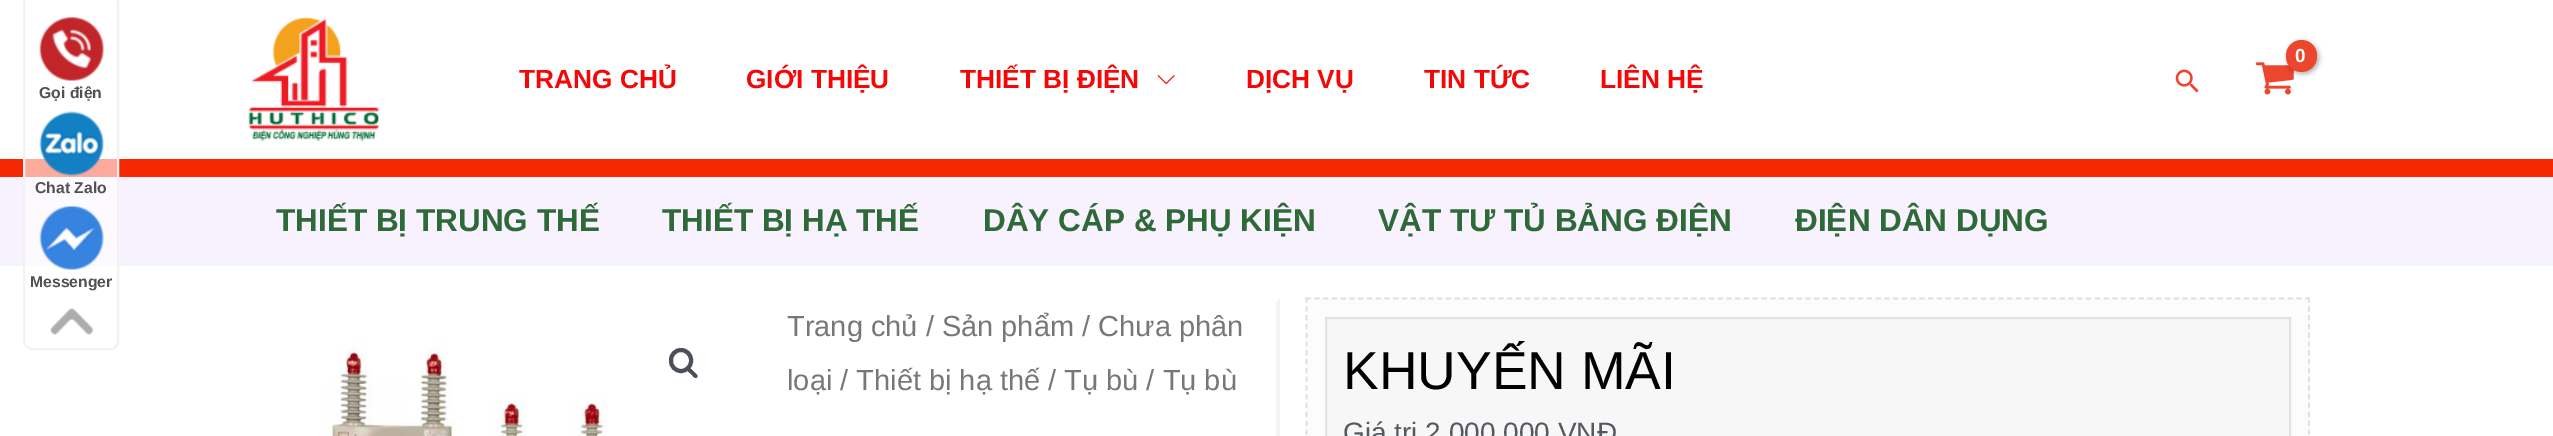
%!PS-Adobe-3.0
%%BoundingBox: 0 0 2553 436
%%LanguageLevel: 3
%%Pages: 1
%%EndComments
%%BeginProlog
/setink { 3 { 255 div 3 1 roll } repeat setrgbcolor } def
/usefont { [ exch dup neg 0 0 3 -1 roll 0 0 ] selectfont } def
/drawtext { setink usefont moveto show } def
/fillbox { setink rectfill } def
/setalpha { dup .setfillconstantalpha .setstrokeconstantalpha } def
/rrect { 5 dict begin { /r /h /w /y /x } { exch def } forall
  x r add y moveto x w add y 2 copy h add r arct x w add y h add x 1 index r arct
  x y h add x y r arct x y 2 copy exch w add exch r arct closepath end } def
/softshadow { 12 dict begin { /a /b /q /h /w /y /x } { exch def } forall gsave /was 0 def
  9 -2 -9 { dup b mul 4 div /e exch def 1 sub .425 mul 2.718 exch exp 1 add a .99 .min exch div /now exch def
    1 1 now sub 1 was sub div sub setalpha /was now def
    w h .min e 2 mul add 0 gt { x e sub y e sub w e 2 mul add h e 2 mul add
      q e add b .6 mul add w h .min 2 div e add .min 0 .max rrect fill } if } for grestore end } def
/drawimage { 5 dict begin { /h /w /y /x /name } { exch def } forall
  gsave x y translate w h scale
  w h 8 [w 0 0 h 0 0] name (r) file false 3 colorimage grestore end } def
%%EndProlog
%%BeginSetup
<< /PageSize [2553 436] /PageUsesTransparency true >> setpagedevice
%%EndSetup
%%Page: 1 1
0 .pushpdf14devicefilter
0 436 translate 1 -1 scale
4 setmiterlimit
0 0 2553 436 255 255 255 fillbox
0 159 2553 18 246 39 3 fillbox
0 177 2553 87 248 242 254 fillbox
0 264 2553 2 242 245 247 fillbox
0.61 setalpha
255 255 255 setink
24 -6 94 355 8 rrect fill
1 setalpha
242 242 242 setink
2 setlinewidth
24 -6 94 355 8 rrect stroke
(assets/img1.rgb) 39 17 65 64 drawimage
(Gọi điện) 39 98 /LiberationSans-Bold 15.75 81 81 81 drawtext
(assets/img2.rgb) 39 111 65 65 drawimage
(Chat Zalo) 35 193 /LiberationSans-Bold 15.75 81 81 81 drawtext
(assets/img3.rgb) 39 206 65 64 drawimage
(Messenger) 30 287 /LiberationSans-Bold 15.75 81 81 81 drawtext
(assets/img4.rgb) 50 308 44 27 drawimage
(assets/img5.rgb) 2255 62 39 33 drawimage
0 0 0 setink
2287 42 32 32 16 2.5 0.3 softshadow
237 70 47 setink
2286 40 31 32 15.5 rrect fill
/LiberationSans-Bold 19 usefont
255 255 255 setink
2295 62 moveto -1 0 (0) ashow
(assets/img6.rgb) 2175 69 24 24 drawimage
(assets/img7.rgb) 248 17 132 125 drawimage
(TRANG CHỦ) 519 88 /LiberationSans-Bold 26.25 246 7 7 drawtext
(GIỚI THIỆU) 746 88 /LiberationSans-Bold 26.25 246 7 7 drawtext
(THIẾT BỊ ĐIỆN) 960 88 /LiberationSans-Bold 26.25 246 7 7 drawtext
(assets/img8.rgb) 1157 75 18 10 drawimage
(DỊCH VỤ) 1246 88 /LiberationSans-Bold 26.25 246 7 7 drawtext
(TIN TỨC) 1424 88 /LiberationSans-Bold 26.25 246 7 7 drawtext
(LIÊN HỆ) 1600 88 /LiberationSans-Bold 26.25 246 7 7 drawtext
(THIẾT BỊ TRUNG THẾ) 276 231 /LiberationSans-Bold 31.5 46 105 56 drawtext
(THIẾT BỊ HẠ THẾ) 662 231 /LiberationSans-Bold 31.5 46 105 56 drawtext
(DÂY CÁP & PHỤ KIỆN) 983 231 /LiberationSans-Bold 31.5 46 105 56 drawtext
(VẬT TƯ TỦ BẢNG ĐIỆN) 1378 231 /LiberationSans-Bold 31.5 46 105 56 drawtext
(ĐIỆN DÂN DỤNG) 1795 231 /LiberationSans-Bold 31.5 46 105 56 drawtext
1276 301 2 135 242 245 247 fillbox
(assets/img9.rgb) 326 341 281 95 drawimage
75 79 88 setink
4 setlinewidth
671 350 20 21 10 rrect stroke
687 368 moveto 689 366 692.5 370.5 693.5 371.5 curveto 694.5 372.5 699 375.5 697 377.5 curveto 695 379.5 692 375 691 374 curveto 690 373 685 370 687 368 curveto closepath fill
(Trang chủ / Sản phẩm / Chưa phân) 787 336 /LiberationSans-Regular 29 119 119 119 drawtext
(loại / Thiết bị hạ thế / Tụ bù / Tụ bù) 787 390 /LiberationSans-Regular 29 119 119 119 drawtext
1278 298 2 138 242 245 247 fillbox
1306 298 1004 138 252 252 252 fillbox
224 224 224 setink
1.8 setlinewidth
[5.25 3.52] 0 setdash
1305.5 298.5 moveto 2310 298.5 lineto stroke
[5.25 3.54] 0 setdash
2309 297.5 moveto 2309 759.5 lineto stroke
1306.5 297.5 moveto 1306.5 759.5 lineto stroke
247 247 247 setink
1326 318 moveto 2290 318 lineto 2290 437 lineto 1326 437 lineto closepath gsave fill grestore
227 227 227 setink
2 setlinewidth
[] 0 setdash
stroke
(KHUYẾN MÃI) 1343 389 /LiberationSans-Regular 53.5 0 0 0 drawtext
(Giá trị 2.000.000 VNĐ) 1343 442 /LiberationSans-Regular 28 84 89 95 drawtext
.poppdf14devicefilter showpage
%%EOF
